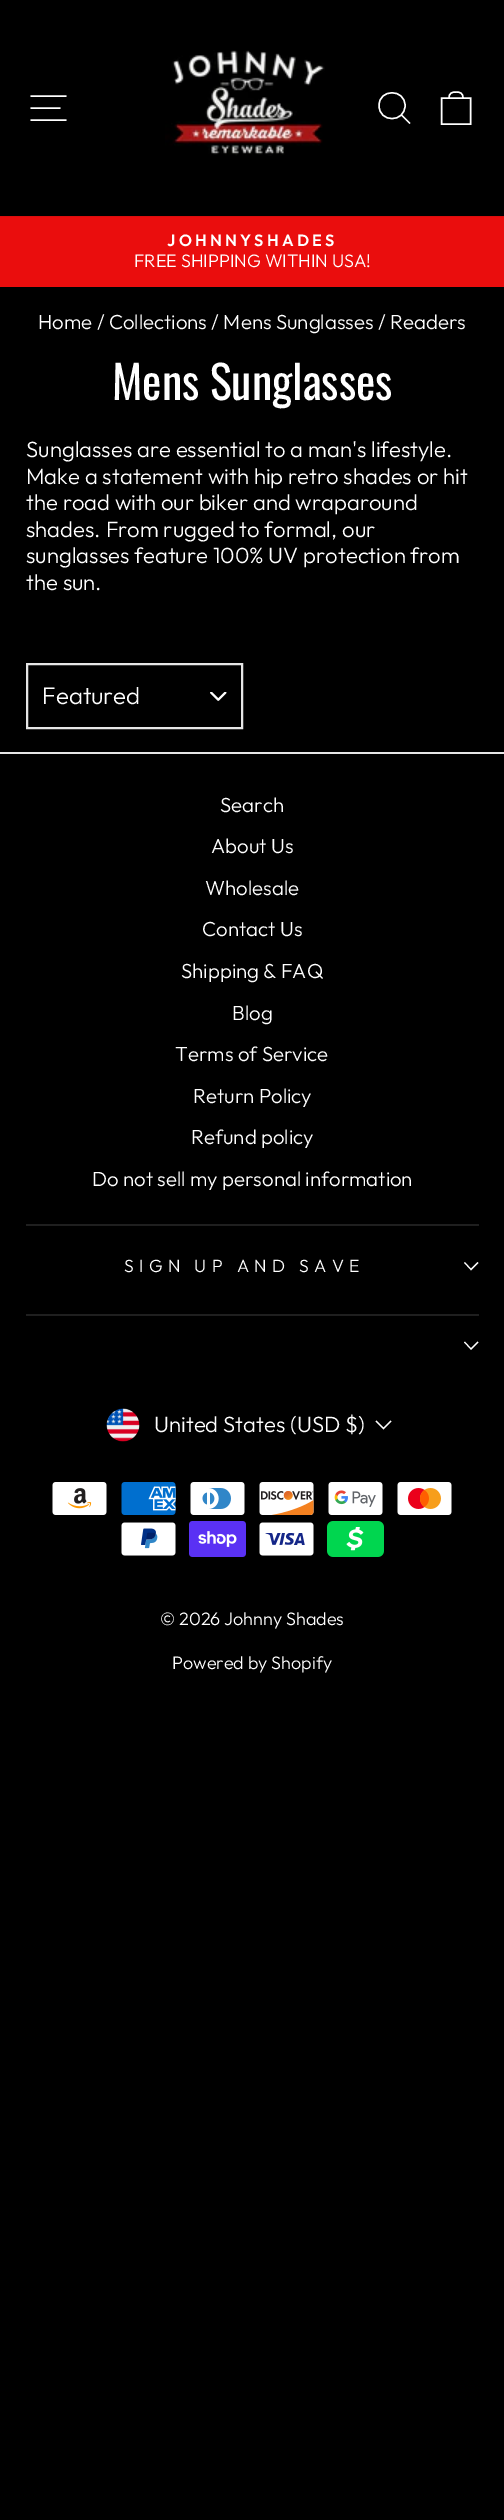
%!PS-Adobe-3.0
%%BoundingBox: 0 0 504 2520
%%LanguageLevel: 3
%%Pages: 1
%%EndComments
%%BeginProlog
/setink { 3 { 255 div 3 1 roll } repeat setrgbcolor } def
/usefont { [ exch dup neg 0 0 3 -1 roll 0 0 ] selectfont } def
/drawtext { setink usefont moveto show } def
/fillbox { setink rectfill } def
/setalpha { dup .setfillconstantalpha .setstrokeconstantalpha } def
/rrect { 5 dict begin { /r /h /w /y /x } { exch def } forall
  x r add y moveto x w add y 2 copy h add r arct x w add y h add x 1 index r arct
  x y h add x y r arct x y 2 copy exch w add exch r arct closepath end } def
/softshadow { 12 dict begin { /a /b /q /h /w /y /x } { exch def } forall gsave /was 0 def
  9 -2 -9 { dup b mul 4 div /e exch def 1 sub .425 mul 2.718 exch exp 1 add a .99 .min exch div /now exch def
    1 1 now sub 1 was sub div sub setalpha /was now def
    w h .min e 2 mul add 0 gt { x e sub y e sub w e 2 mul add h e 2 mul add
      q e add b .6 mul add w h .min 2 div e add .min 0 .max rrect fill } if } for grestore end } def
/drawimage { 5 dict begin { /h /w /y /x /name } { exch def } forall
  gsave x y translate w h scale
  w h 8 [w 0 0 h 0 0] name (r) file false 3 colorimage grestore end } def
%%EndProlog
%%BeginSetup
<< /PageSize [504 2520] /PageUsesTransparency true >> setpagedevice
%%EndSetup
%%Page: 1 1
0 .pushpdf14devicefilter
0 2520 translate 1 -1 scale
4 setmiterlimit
0 0 504 2520 0 0 0 fillbox
0 216 504 71 234 13 13 fillbox
gsave
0 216 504 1 rectclip
0 0 0 setink
0 0 504 216 0 1 0.2 softshadow
grestore
255 255 255 setink
1.4 setlinewidth
30.5 96 moveto 66.5 96 lineto 30.5 108 moveto 60.5 108 lineto 30.5 120 moveto 66.5 120 lineto stroke
(assets/img1.rgb) 165 50 160 106 drawimage
405 105.5 moveto 405 123 379 123 379 105.5 curveto 379 88.5 405 88.5 405 105.5 curveto closepath 410 123.5 moveto 401.5 115 lineto stroke
441.5 98 moveto 470.5 98 lineto 470.5 124 lineto 441.5 124 lineto closepath 449 98 moveto 449 93 452 92 456 92 curveto 460 92 463 93 463 98 curveto stroke
/Outfit-SemiBold 16.25 usefont
167 246 moveto 3.25 0 (JOHNNYSHADES) ashow
(FREE SHIPPING WITHIN USA!) 134 267 /Outfit-Light 18 255 255 255 drawtext
(Home / Collections / Mens Sunglasses / Readers) 38 329 /Outfit-Light 20.4 255 255 255 drawtext
(Mens Sunglasses) 112 400 /Oswald-Regular 46 255 255 255 drawtext
(Sunglasses are essential to a man's lifestyle.) 26 457 /Outfit-Light 22.1 255 255 255 drawtext
(Make a statement with hip retro shades or hit) 26 484 /Outfit-Light 22.1 255 255 255 drawtext
(the road with our biker and wraparound) 26 510 /Outfit-Light 22.1 255 255 255 drawtext
(shades. From rugged to formal, our) 26 537 /Outfit-Light 22.1 255 255 255 drawtext
(sunglasses feature 100% UV protection from) 26 563 /Outfit-Light 22.1 255 255 255 drawtext
(the sun.) 26 590 /Outfit-Light 22.1 255 255 255 drawtext
(assets/img2.rgb) 210 692 17 9 drawimage
230 230 230 setink
2 setlinewidth
27 664 215 64 rectstroke
(Featured) 42 704 /Outfit-Light 24 255 255 255 drawtext
0 752 504 2 230 230 230 fillbox
(Search) 220 812 /Outfit-Light 20.4 255 255 255 drawtext
(About Us) 211 853 /Outfit-Light 20.4 255 255 255 drawtext
(Wholesale) 205 895 /Outfit-Light 20.4 255 255 255 drawtext
(Contact Us) 202 936 /Outfit-Light 20.4 255 255 255 drawtext
(Shipping & FAQ) 181 978 /Outfit-Light 20.4 255 255 255 drawtext
(Blog) 232 1020 /Outfit-Light 20.4 255 255 255 drawtext
(Terms of Service) 175 1061 /Outfit-Light 20.4 255 255 255 drawtext
(Return Policy) 193 1103 /Outfit-Light 20.4 255 255 255 drawtext
(Refund policy) 191 1144 /Outfit-Light 20.4 255 255 255 drawtext
(Do not sell my personal information) 92 1186 /Outfit-Light 20.4 255 255 255 drawtext
26 1224 453 2 31 31 31 fillbox
/Outfit-Light 17.7 usefont
255 255 255 setink
124 1272 moveto 5.25 0 (SIGN UP AND SAVE) ashow
1.1 setlinewidth
464.5 1262.5 moveto 471 1269.5 lineto 478 1262.5 lineto stroke
26 1314 453 2 31 31 31 fillbox
255 255 255 setink
464.5 1342 moveto 471 1349 lineto 478 1342 lineto stroke
(assets/img3.rgb) 106 1408 34 34 drawimage
(United States \(USD $\)) 154 1432 /Outfit-Light 22.1 255 255 255 drawtext
1.2 setlinewidth
376 1421 moveto 383.5 1428.5 lineto 391 1421 lineto stroke
(assets/img4.rgb) 52 1482 55 33 drawimage
(assets/img5.rgb) 121 1482 55 33 drawimage
(assets/img6.rgb) 190 1482 55 33 drawimage
(assets/img7.rgb) 259 1482 55 33 drawimage
(assets/img8.rgb) 328 1482 55 33 drawimage
(assets/img9.rgb) 397 1482 55 33 drawimage
(assets/img10.rgb) 121 1522 55 34 drawimage
(assets/img11.rgb) 189 1521 57 36 drawimage
(assets/img12.rgb) 259 1522 55 34 drawimage
(assets/img13.rgb) 327 1521 57 36 drawimage
(© 2026 Johnny Shades) 160 1625 /Outfit-Light 18 255 255 255 drawtext
(Powered by Shopify) 172 1669 /Outfit-Light 18 255 255 255 drawtext
.poppdf14devicefilter showpage
%%EOF
